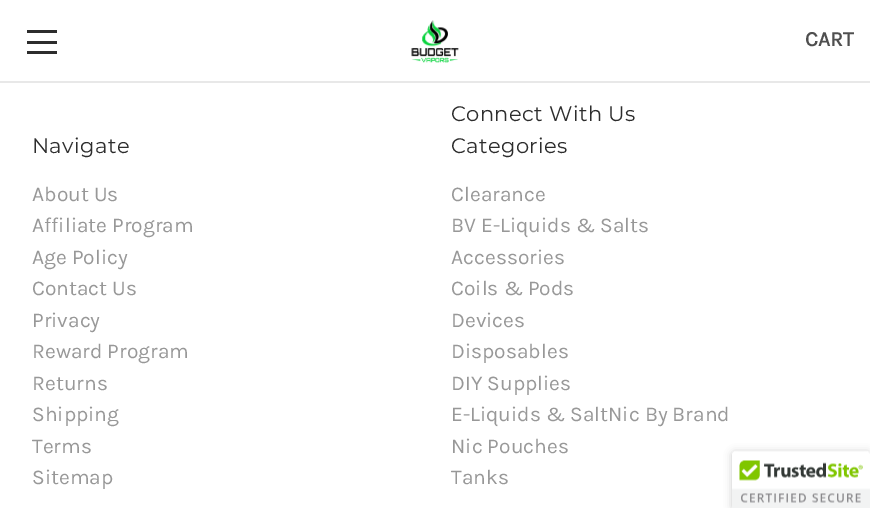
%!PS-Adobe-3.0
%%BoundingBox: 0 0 870 508
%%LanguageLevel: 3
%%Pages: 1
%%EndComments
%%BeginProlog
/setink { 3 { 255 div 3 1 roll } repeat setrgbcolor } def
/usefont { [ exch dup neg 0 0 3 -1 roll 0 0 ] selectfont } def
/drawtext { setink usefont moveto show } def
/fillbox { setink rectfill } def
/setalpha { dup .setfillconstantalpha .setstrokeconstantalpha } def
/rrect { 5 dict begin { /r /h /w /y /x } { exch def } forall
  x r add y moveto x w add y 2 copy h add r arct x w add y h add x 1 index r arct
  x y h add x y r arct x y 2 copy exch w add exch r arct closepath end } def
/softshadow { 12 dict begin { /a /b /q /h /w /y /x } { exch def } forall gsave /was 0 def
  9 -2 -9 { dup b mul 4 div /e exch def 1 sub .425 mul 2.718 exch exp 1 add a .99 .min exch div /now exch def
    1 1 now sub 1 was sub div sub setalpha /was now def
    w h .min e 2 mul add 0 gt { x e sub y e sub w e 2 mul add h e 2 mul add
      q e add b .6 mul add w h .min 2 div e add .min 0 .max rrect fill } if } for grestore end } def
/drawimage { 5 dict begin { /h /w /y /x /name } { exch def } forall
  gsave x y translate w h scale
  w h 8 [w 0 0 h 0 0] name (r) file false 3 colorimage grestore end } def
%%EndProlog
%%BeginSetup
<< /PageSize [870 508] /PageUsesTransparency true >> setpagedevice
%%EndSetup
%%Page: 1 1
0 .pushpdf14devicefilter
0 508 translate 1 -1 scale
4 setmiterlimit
0 0 870 508 255 255 255 fillbox
0 81 870 2 232 232 232 fillbox
27 41 30 3 45 45 45 fillbox
27 30 30 3 45 45 45 fillbox
27 51 30 3 45 45 45 fillbox
(assets/img1.rgb) 411 20 48 43 drawimage
(CART) 805 46 /Karla-Bold 21 79 79 79 drawtext
/Montserrat-Thin 21 usefont
45 45 45 setink
451 121 moveto 0.4 0 (Connect With Us) ashow
32 153 moveto 0.4 0 (Navigate) ashow
(About Us) 32 201 /Karla-Regular 21 152 152 152 drawtext
(Affiliate Program) 32 232 /Karla-Regular 21 152 152 152 drawtext
(Age Policy) 32 264 /Karla-Regular 21 152 152 152 drawtext
(Contact Us) 32 295 /Karla-Regular 21 152 152 152 drawtext
(Privacy) 32 327 /Karla-Regular 21 152 152 152 drawtext
(Reward Program) 32 358 /Karla-Regular 21 152 152 152 drawtext
(Returns) 32 390 /Karla-Regular 21 152 152 152 drawtext
(Shipping) 32 421 /Karla-Regular 21 152 152 152 drawtext
(Terms) 32 453 /Karla-Regular 21 152 152 152 drawtext
(Sitemap) 32 484 /Karla-Regular 21 152 152 152 drawtext
/Montserrat-Thin 21 usefont
45 45 45 setink
451 153 moveto 0.4 0 (Categories) ashow
(Clearance) 451 201 /Karla-Regular 21 152 152 152 drawtext
(BV E-Liquids & Salts) 451 232 /Karla-Regular 21 152 152 152 drawtext
(Accessories) 451 264 /Karla-Regular 21 152 152 152 drawtext
(Coils & Pods) 451 295 /Karla-Regular 21 152 152 152 drawtext
(Devices) 451 327 /Karla-Regular 21 152 152 152 drawtext
(Disposables) 451 358 /Karla-Regular 21 152 152 152 drawtext
(DIY Supplies) 451 390 /Karla-Regular 21 152 152 152 drawtext
(E-Liquids & SaltNic By Brand) 451 421 /Karla-Regular 21 152 152 152 drawtext
(Nic Pouches) 451 453 /Karla-Regular 21 152 152 152 drawtext
(Tanks) 451 484 /Karla-Regular 21 152 152 152 drawtext
0 0 0 setink
732 452 138 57 3 4 0.2 softshadow
255 255 255 setink
735 452 moveto 870 452 lineto 870 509 lineto 732 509 lineto 732 455 lineto 732 453.5 733.5 452 735 452 curveto closepath fill
(assets/img2.rgb) 732 451 138 57 drawimage
.poppdf14devicefilter showpage
%%EOF
